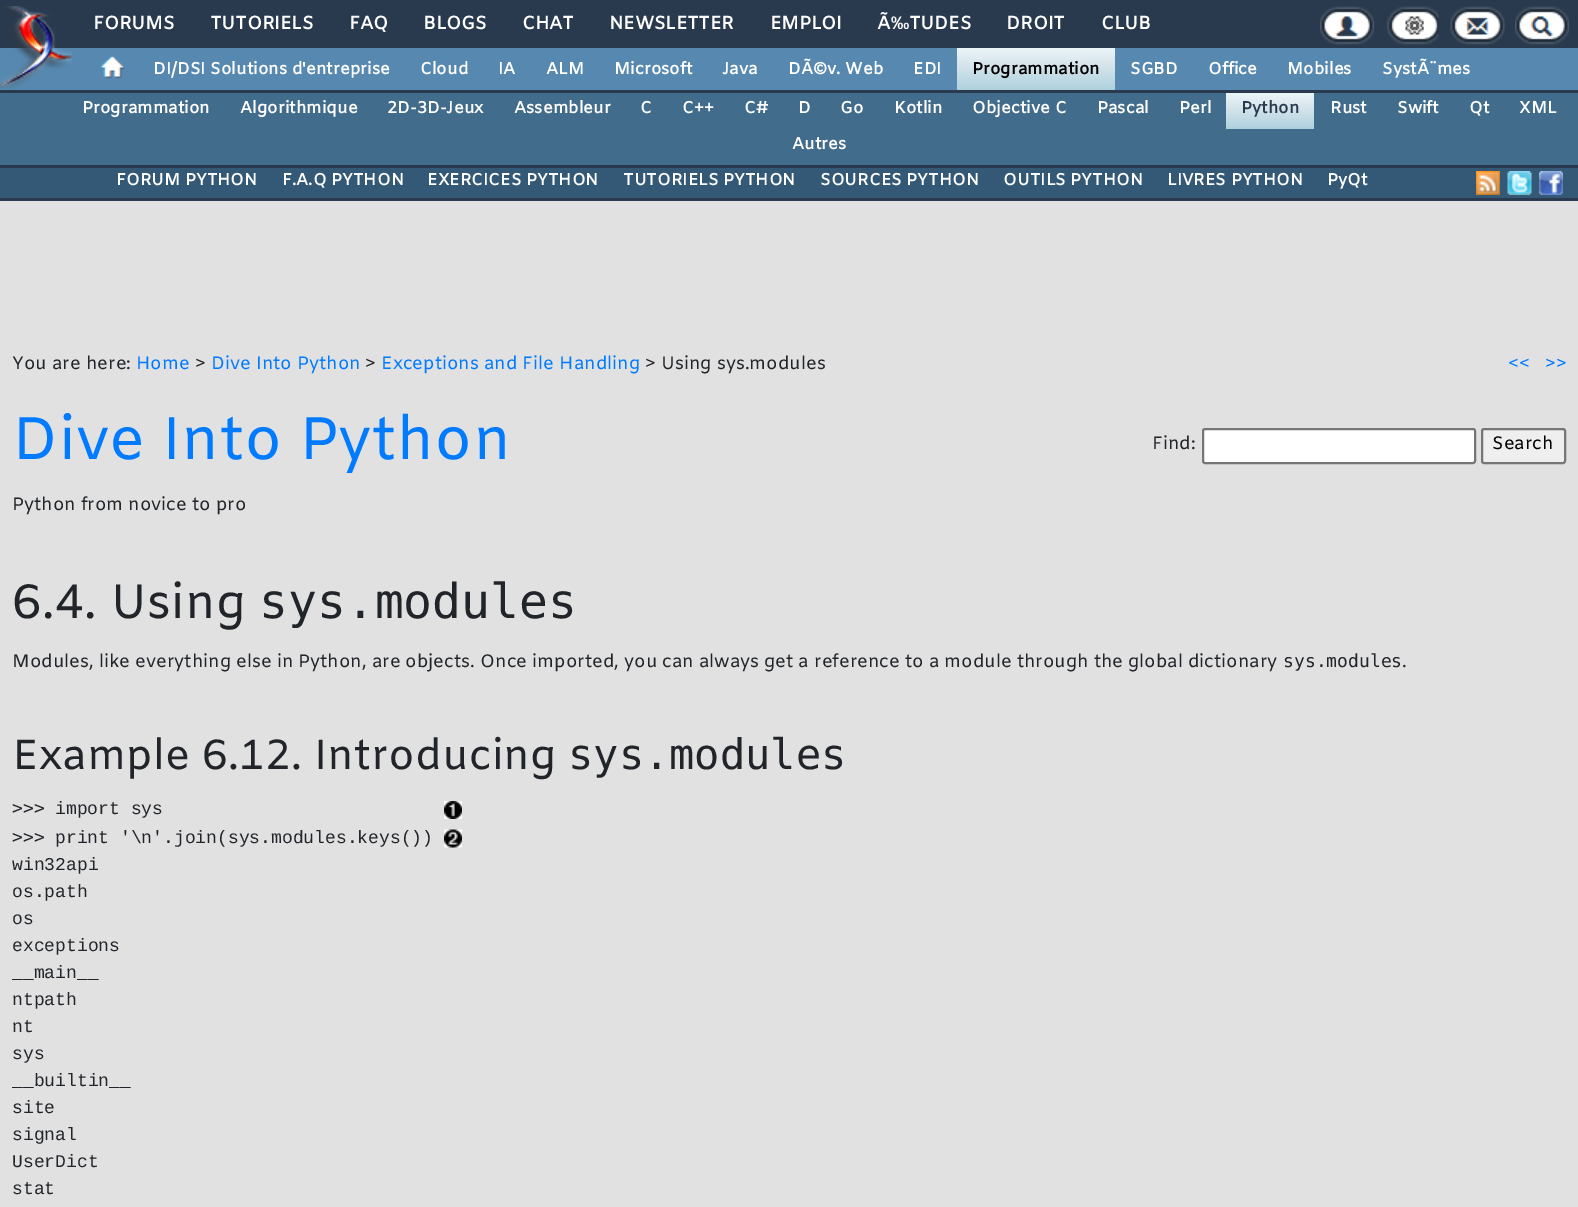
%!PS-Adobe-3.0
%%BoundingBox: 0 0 1578 1207
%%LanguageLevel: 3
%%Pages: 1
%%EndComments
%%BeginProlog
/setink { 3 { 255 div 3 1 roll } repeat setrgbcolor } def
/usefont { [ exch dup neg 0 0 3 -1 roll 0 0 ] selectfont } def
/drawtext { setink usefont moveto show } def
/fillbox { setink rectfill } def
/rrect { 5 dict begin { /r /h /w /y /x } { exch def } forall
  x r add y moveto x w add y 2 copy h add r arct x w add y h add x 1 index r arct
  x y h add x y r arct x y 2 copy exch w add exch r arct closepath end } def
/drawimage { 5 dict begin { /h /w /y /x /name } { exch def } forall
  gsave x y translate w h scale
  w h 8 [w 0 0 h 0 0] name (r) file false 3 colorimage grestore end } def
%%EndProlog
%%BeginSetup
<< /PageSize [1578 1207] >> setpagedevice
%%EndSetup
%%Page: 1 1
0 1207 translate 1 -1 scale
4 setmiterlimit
0 0 1578 1207 41 58 78 fillbox
0 48 1578 42 87 137 176 fillbox
(assets/img1.rgb) 0 6 72 83 drawimage
/Amiko-Bold 18.25 usefont
255 255 255 setink
93 29 moveto -0.25 0 (FORUMS) ashow
210 29 moveto -0.25 0 (TUTORIELS) ashow
349 29 moveto -0.25 0 (FAQ) ashow
423 29 moveto -0.25 0 (BLOGS) ashow
522 29 moveto -0.25 0 (CHAT) ashow
609 29 moveto -0.25 0 (NEWSLETTER) ashow
770 29 moveto -0.25 0 (EMPLOI) ashow
877 29 moveto -0.25 0 (Ã) ashow
(‰) 891 29 /LiberationSans-Bold 18.25 255 255 255 drawtext
/Amiko-Bold 18.25 usefont
909 29 moveto -0.25 0 (TUDES) ashow
1006 29 moveto -0.25 0 (DROIT) ashow
1101 29 moveto -0.25 0 (CLUB) ashow
(assets/img2.rgb) 1320 6 54 39 drawimage
(assets/img3.rgb) 1386 6 53 39 drawimage
(assets/img4.rgb) 1450 6 55 39 drawimage
(assets/img5.rgb) 1515 6 54 39 drawimage
(assets/img6.rgb) 100 56 25 23 drawimage
(DI/DSI Solutions d'entreprise) 153 74 /Amiko-Bold 16.5 255 255 255 drawtext
(Cloud) 420 74 /Amiko-Bold 16.5 255 255 255 drawtext
(IA) 498 74 /Amiko-Bold 16.5 255 255 255 drawtext
(ALM) 546 74 /Amiko-Bold 16.5 255 255 255 drawtext
(Microsoft) 614 74 /Amiko-Bold 16.5 255 255 255 drawtext
(Java) 722 74 /Amiko-Bold 16.5 255 255 255 drawtext
(DÃ©v. Web) 788 74 /Amiko-Bold 16.5 255 255 255 drawtext
(EDI) 913 74 /Amiko-Bold 16.5 255 255 255 drawtext
gsave 957 48 moveto 1115 48 lineto 1115 90 lineto 957 90 lineto closepath clip newpath
<< /ShadingType 2 /ColorSpace /DeviceRGB /Coords [1036 48 1036 90] /Extend [true true] /Function << /FunctionType 3 /Domain [0 1] /Functions [<< /FunctionType 2 /Domain [0 1] /C0 [0.918 0.961 0.973] /C1 [0.847 0.902 0.925] /N 1 >> << /FunctionType 2 /Domain [0 1] /C0 [0.847 0.902 0.925] /C1 [0.682 0.82 0.867] /N 1 >>] /Bounds [0.37] /Encode [0 1 0 1] >> >> shfill grestore
(Programmation) 972 74 /Amiko-Bold 16.5 0 0 0 drawtext
(SGBD) 1130 74 /Amiko-Bold 16.5 255 255 255 drawtext
(Office) 1208 74 /Amiko-Bold 16.5 255 255 255 drawtext
(Mobiles) 1287 74 /Amiko-Bold 16.5 255 255 255 drawtext
(SystÃ¨mes) 1382 74 /Amiko-Bold 16.5 255 255 255 drawtext
0 93 1578 72 66 108 140 fillbox
(Programmation) 82 113 /Amiko-Bold 16.5 255 255 255 drawtext
(Algorithmique) 240 113 /Amiko-Bold 16.5 255 255 255 drawtext
(2D-3D-Jeux) 387 113 /Amiko-Bold 16.5 255 255 255 drawtext
(Assembleur) 514 113 /Amiko-Bold 16.5 255 255 255 drawtext
(C) 640 113 /Amiko-Bold 16.5 255 255 255 drawtext
(C++) 682 113 /Amiko-Bold 16.5 255 255 255 drawtext
(C#) 744 113 /Amiko-Bold 16.5 255 255 255 drawtext
(D) 798 113 /Amiko-Bold 16.5 255 255 255 drawtext
(Go) 840 113 /Amiko-Bold 16.5 255 255 255 drawtext
(Kotlin) 894 113 /Amiko-Bold 16.5 255 255 255 drawtext
(Objective C) 972 113 /Amiko-Bold 16.5 255 255 255 drawtext
(Pascal) 1097 113 /Amiko-Bold 16.5 255 255 255 drawtext
(Perl) 1179 113 /Amiko-Bold 16.5 255 255 255 drawtext
gsave 1226 93 moveto 1314 93 lineto 1314 129 lineto 1226 129 lineto closepath clip newpath
<< /ShadingType 2 /ColorSpace /DeviceRGB /Coords [1270 93 1270 129] /Extend [true true] /Function << /FunctionType 3 /Domain [0 1] /Functions [<< /FunctionType 2 /Domain [0 1] /C0 [0.918 0.961 0.973] /C1 [0.847 0.902 0.925] /N 1 >> << /FunctionType 2 /Domain [0 1] /C0 [0.847 0.902 0.925] /C1 [0.682 0.82 0.867] /N 1 >>] /Bounds [0.37] /Encode [0 1 0 1] >> >> shfill grestore
(Python) 1241 113 /Amiko-Bold 16.5 41 58 78 drawtext
(Rust) 1330 113 /Amiko-Bold 16.5 255 255 255 drawtext
(Swift) 1397 113 /Amiko-Bold 16.5 255 255 255 drawtext
(Qt) 1469 113 /Amiko-Bold 16.5 255 255 255 drawtext
(XML) 1519 113 /Amiko-Bold 16.5 255 255 255 drawtext
(Autres) 792 149 /Amiko-Bold 16.5 255 255 255 drawtext
0 168 1578 30 52 89 118 fillbox
(FORUM PYTHON) 116 185 /Amiko-Bold 16.5 255 255 255 drawtext
(F.A.Q PYTHON) 282 185 /Amiko-Bold 16.5 255 255 255 drawtext
(EXERCICES PYTHON) 427 185 /Amiko-Bold 16.5 255 255 255 drawtext
(TUTORIELS PYTHON) 623 185 /Amiko-Bold 16.5 255 255 255 drawtext
(SOURCES PYTHON) 820 185 /Amiko-Bold 16.5 255 255 255 drawtext
(OUTILS PYTHON) 1003 185 /Amiko-Bold 16.5 255 255 255 drawtext
(LIVRES PYTHON) 1167 185 /Amiko-Bold 16.5 255 255 255 drawtext
(PyQt) 1327 185 /Amiko-Bold 16.5 255 255 255 drawtext
(assets/img7.rgb) 1476 171 24 24 drawimage
(assets/img8.rgb) 1507 171 25 24 drawimage
(assets/img9.rgb) 1539 171 24 24 drawimage
0 201 1578 1006 225 225 226 fillbox
(You are here:) 12 369 /Amiko-Regular 18 33 37 41 drawtext
(Home) 136 369 /Amiko-Regular 18 0 123 255 drawtext
(>) 195 369 /Amiko-Regular 18 33 37 41 drawtext
(Dive Into Python) 211 369 /Amiko-Regular 18 0 123 255 drawtext
(>) 365 369 /Amiko-Regular 18 33 37 41 drawtext
(Exceptions and File Handling) 381 369 /Amiko-Regular 18 0 123 255 drawtext
(> Using sys.modules) 645 369 /Amiko-Regular 18 33 37 41 drawtext
(<<) 1508 369 /Amiko-Regular 18 0 123 255 drawtext
(>>) 1545 369 /Amiko-Regular 18 0 123 255 drawtext
(Dive Into Python) 12 459 /Amiko-Regular 60 0 123 255 drawtext
(Python from novice to pro) 12 510 /Amiko-Regular 18 33 37 41 drawtext
(Find:) 1152 449 /Amiko-Regular 18 33 37 41 drawtext
255 255 255 setink
1203 429 272 34 2 rrect gsave fill grestore
118 118 118 setink
2 setlinewidth
stroke
239 239 239 setink
1482 429 83 34 2 rrect gsave fill grestore
118 118 118 setink
stroke
(Search) 1492 449 /Amiko-Regular 18 0 0 0 drawtext
(6.4. Using) 12 618 /Amiko-Regular 48 33 37 41 drawtext
(sys.modules) 259 618 /DejaVuSansMono-Regular 48 33 37 41 drawtext
(Modules, like everything else in Python, are objects. Once imported, you can always get a reference to a module through the global dictionary) 12 667 /Amiko-Regular 18 33 37 41 drawtext
(sys.modules) 1283 667 /DejaVuSansMono-Regular 18 33 37 41 drawtext
(.) 1402 667 /Amiko-Regular 18 33 37 41 drawtext
(Example 6.12. Introducing) 12 769 /Amiko-Regular 42 33 37 41 drawtext
(sys.modules) 568 769 /DejaVuSansMono-Regular 42 33 37 41 drawtext
(>>>) 12 814 /DejaVuSansMono-Regular 18 33 37 41 drawtext
(import sys) 55 814 /LiberationMono-Regular 18 33 37 41 drawtext
(assets/img10.rgb) 444 801 18 18 drawimage
(>>>) 12 843 /DejaVuSansMono-Regular 18 33 37 41 drawtext
(print '\\n'.join\(sys.modules.keys\(\)\)) 55 843 /LiberationMono-Regular 18 33 37 41 drawtext
(assets/img11.rgb) 444 829 18 19 drawimage
(win32api) 12 870 /LiberationMono-Regular 18 33 37 41 drawtext
(os.path) 12 897 /LiberationMono-Regular 18 33 37 41 drawtext
(os) 12 924 /LiberationMono-Regular 18 33 37 41 drawtext
(exceptions) 12 951 /LiberationMono-Regular 18 33 37 41 drawtext
(__main__) 12 978 /LiberationMono-Regular 18 33 37 41 drawtext
(ntpath) 12 1005 /LiberationMono-Regular 18 33 37 41 drawtext
(nt) 12 1032 /LiberationMono-Regular 18 33 37 41 drawtext
(sys) 12 1059 /LiberationMono-Regular 18 33 37 41 drawtext
(__builtin__) 12 1086 /LiberationMono-Regular 18 33 37 41 drawtext
(site) 12 1113 /LiberationMono-Regular 18 33 37 41 drawtext
(signal) 12 1140 /LiberationMono-Regular 18 33 37 41 drawtext
(UserDict) 12 1167 /LiberationMono-Regular 18 33 37 41 drawtext
(stat) 12 1194 /LiberationMono-Regular 18 33 37 41 drawtext
showpage
%%EOF
